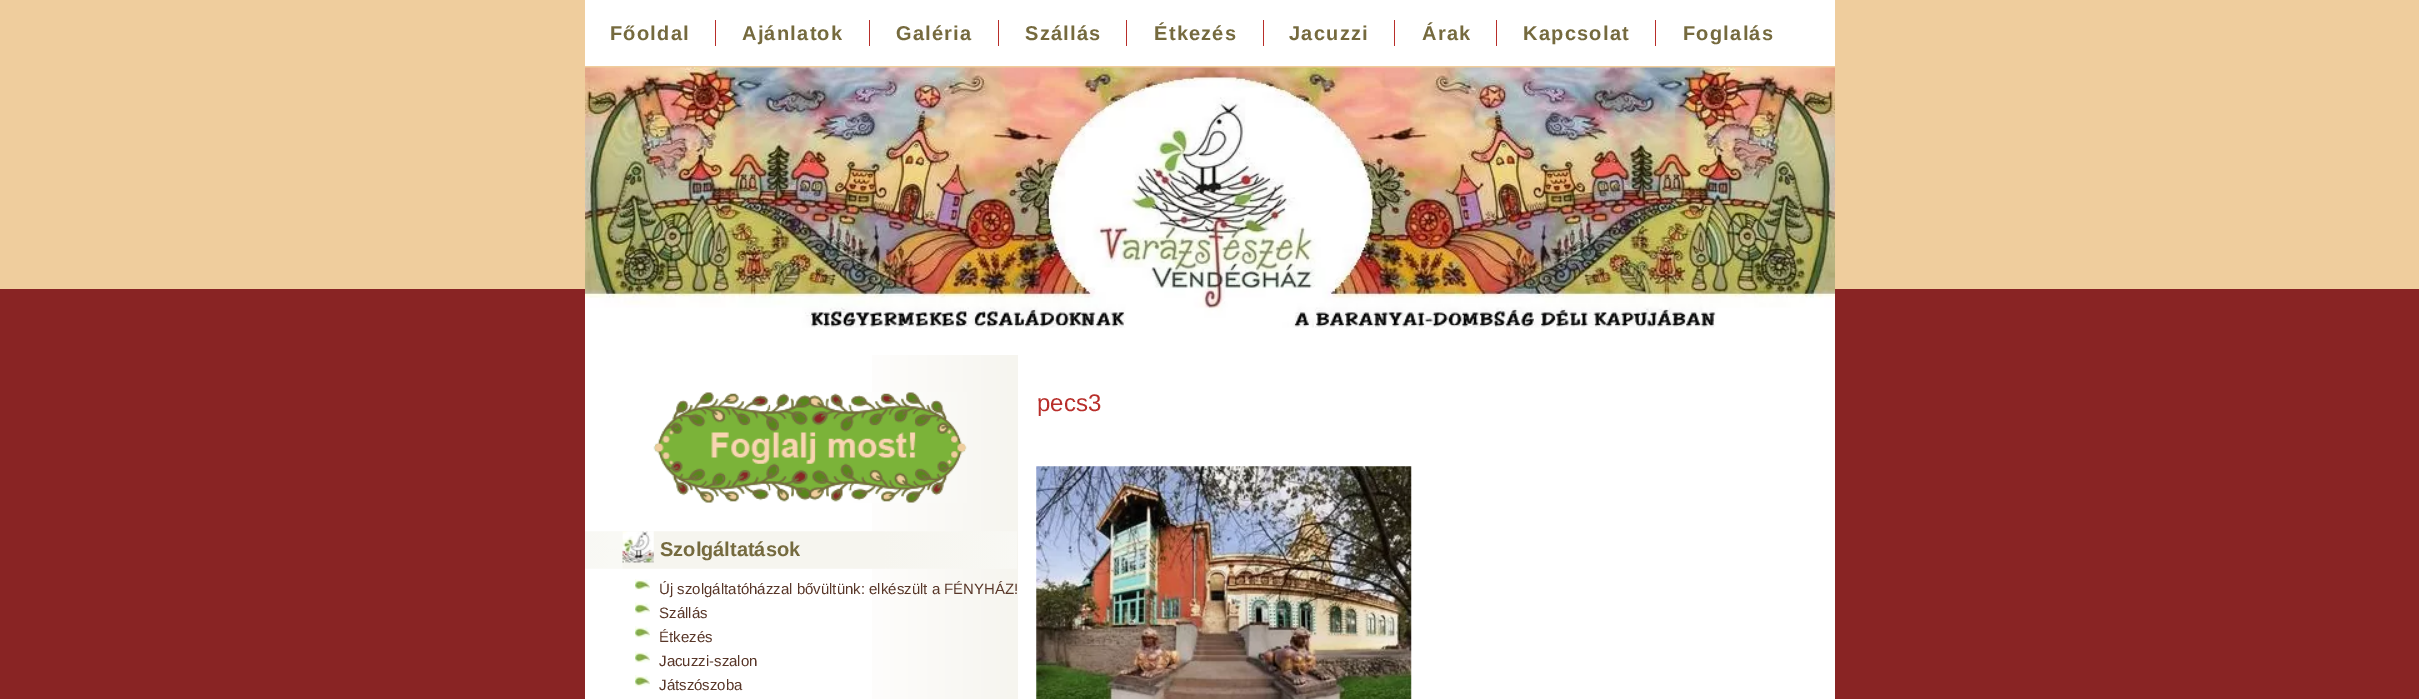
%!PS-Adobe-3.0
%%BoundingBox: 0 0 2419 699
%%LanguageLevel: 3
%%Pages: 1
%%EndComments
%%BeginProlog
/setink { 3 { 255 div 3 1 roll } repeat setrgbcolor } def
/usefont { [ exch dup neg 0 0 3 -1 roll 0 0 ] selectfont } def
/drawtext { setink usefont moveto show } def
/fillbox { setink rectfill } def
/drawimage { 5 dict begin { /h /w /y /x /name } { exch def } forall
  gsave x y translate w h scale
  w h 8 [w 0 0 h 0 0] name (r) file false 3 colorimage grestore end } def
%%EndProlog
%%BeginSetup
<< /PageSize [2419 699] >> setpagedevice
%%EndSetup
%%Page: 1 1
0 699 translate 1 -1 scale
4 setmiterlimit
0 0 2419 699 137 36 36 fillbox
0 0 2419 289 239 205 157 fillbox
585 0 1250 66 255 255 255 fillbox
715 20 1 26 184 46 42 fillbox
/LiberationSans-Bold 20 usefont
117 106 62 setink
610 40 moveto 1.25 0 (Főoldal) ashow
869 20 1 26 184 46 42 fillbox
117 106 62 setink
742 40 moveto 1.25 0 (Ajánlatok) ashow
998 20 1 26 184 46 42 fillbox
117 106 62 setink
896 40 moveto 1.25 0 (Galéria) ashow
1126 20 1 26 184 46 42 fillbox
117 106 62 setink
1025 40 moveto 1.25 0 (Szállás) ashow
1263 20 1 26 184 46 42 fillbox
117 106 62 setink
1154 40 moveto 1.25 0 (Étkezés) ashow
1394 20 1 26 184 46 42 fillbox
117 106 62 setink
1289 40 moveto 1.25 0 (Jacuzzi) ashow
1496 20 1 26 184 46 42 fillbox
117 106 62 setink
1422 40 moveto 1.25 0 (Árak) ashow
1655 20 1 26 184 46 42 fillbox
117 106 62 setink
1523 40 moveto 1.25 0 (Kapcsolat) ashow
1683 40 moveto 1.25 0 (Foglalás) ashow
(assets/img1.rgb) 585 67 1250 263 drawimage
585 330 1250 369 255 255 255 fillbox
(pecs3) 1037 411 /LiberationSans-Regular 24 184 46 42 drawtext
(assets/img2.rgb) 1036 466 376 233 drawimage
gsave 872 355 moveto 1018 355 lineto 1018 699 lineto 872 699 lineto closepath clip newpath
<< /ShadingType 2 /ColorSpace /DeviceRGB /Coords [585 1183 1018 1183] /Extend [true true] /Function << /FunctionType 3 /Domain [0 1] /Functions [<< /FunctionType 2 /Domain [0 1] /C0 [1 1 1] /C1 [1 1 1] /N 1 >> << /FunctionType 2 /Domain [0 1] /C0 [1 1 1] /C1 [0.965 0.961 0.937] /N 1 >>] /Bounds [0.6] /Encode [0 1 0 1] >> >> shfill grestore
(assets/img3.rgb) 653 392 314 111 drawimage
(assets/img4.rgb) 585 531 432 38 drawimage
(Szolgáltatások) 660 556 /LiberationSans-Bold 20 117 106 62 drawtext
(assets/img5.rgb) 635 579 15 11 drawimage
(Új szolgáltatóházzal bővültünk: elkészült a FÉNYHÁZ!) 659 594 /LiberationSans-Regular 15 88 54 40 drawtext
(assets/img6.rgb) 635 602 15 12 drawimage
(Szállás) 659 618 /LiberationSans-Regular 15 88 54 40 drawtext
(assets/img7.rgb) 635 626 15 12 drawimage
(Étkezés) 659 642 /LiberationSans-Regular 15 88 54 40 drawtext
(assets/img7.rgb) 635 651 15 12 drawimage
(Jacuzzi-szalon) 659 666 /LiberationSans-Regular 15 88 54 40 drawtext
(assets/img8.rgb) 635 675 15 12 drawimage
(Játszószoba) 659 690 /LiberationSans-Regular 15 88 54 40 drawtext
showpage
%%EOF
